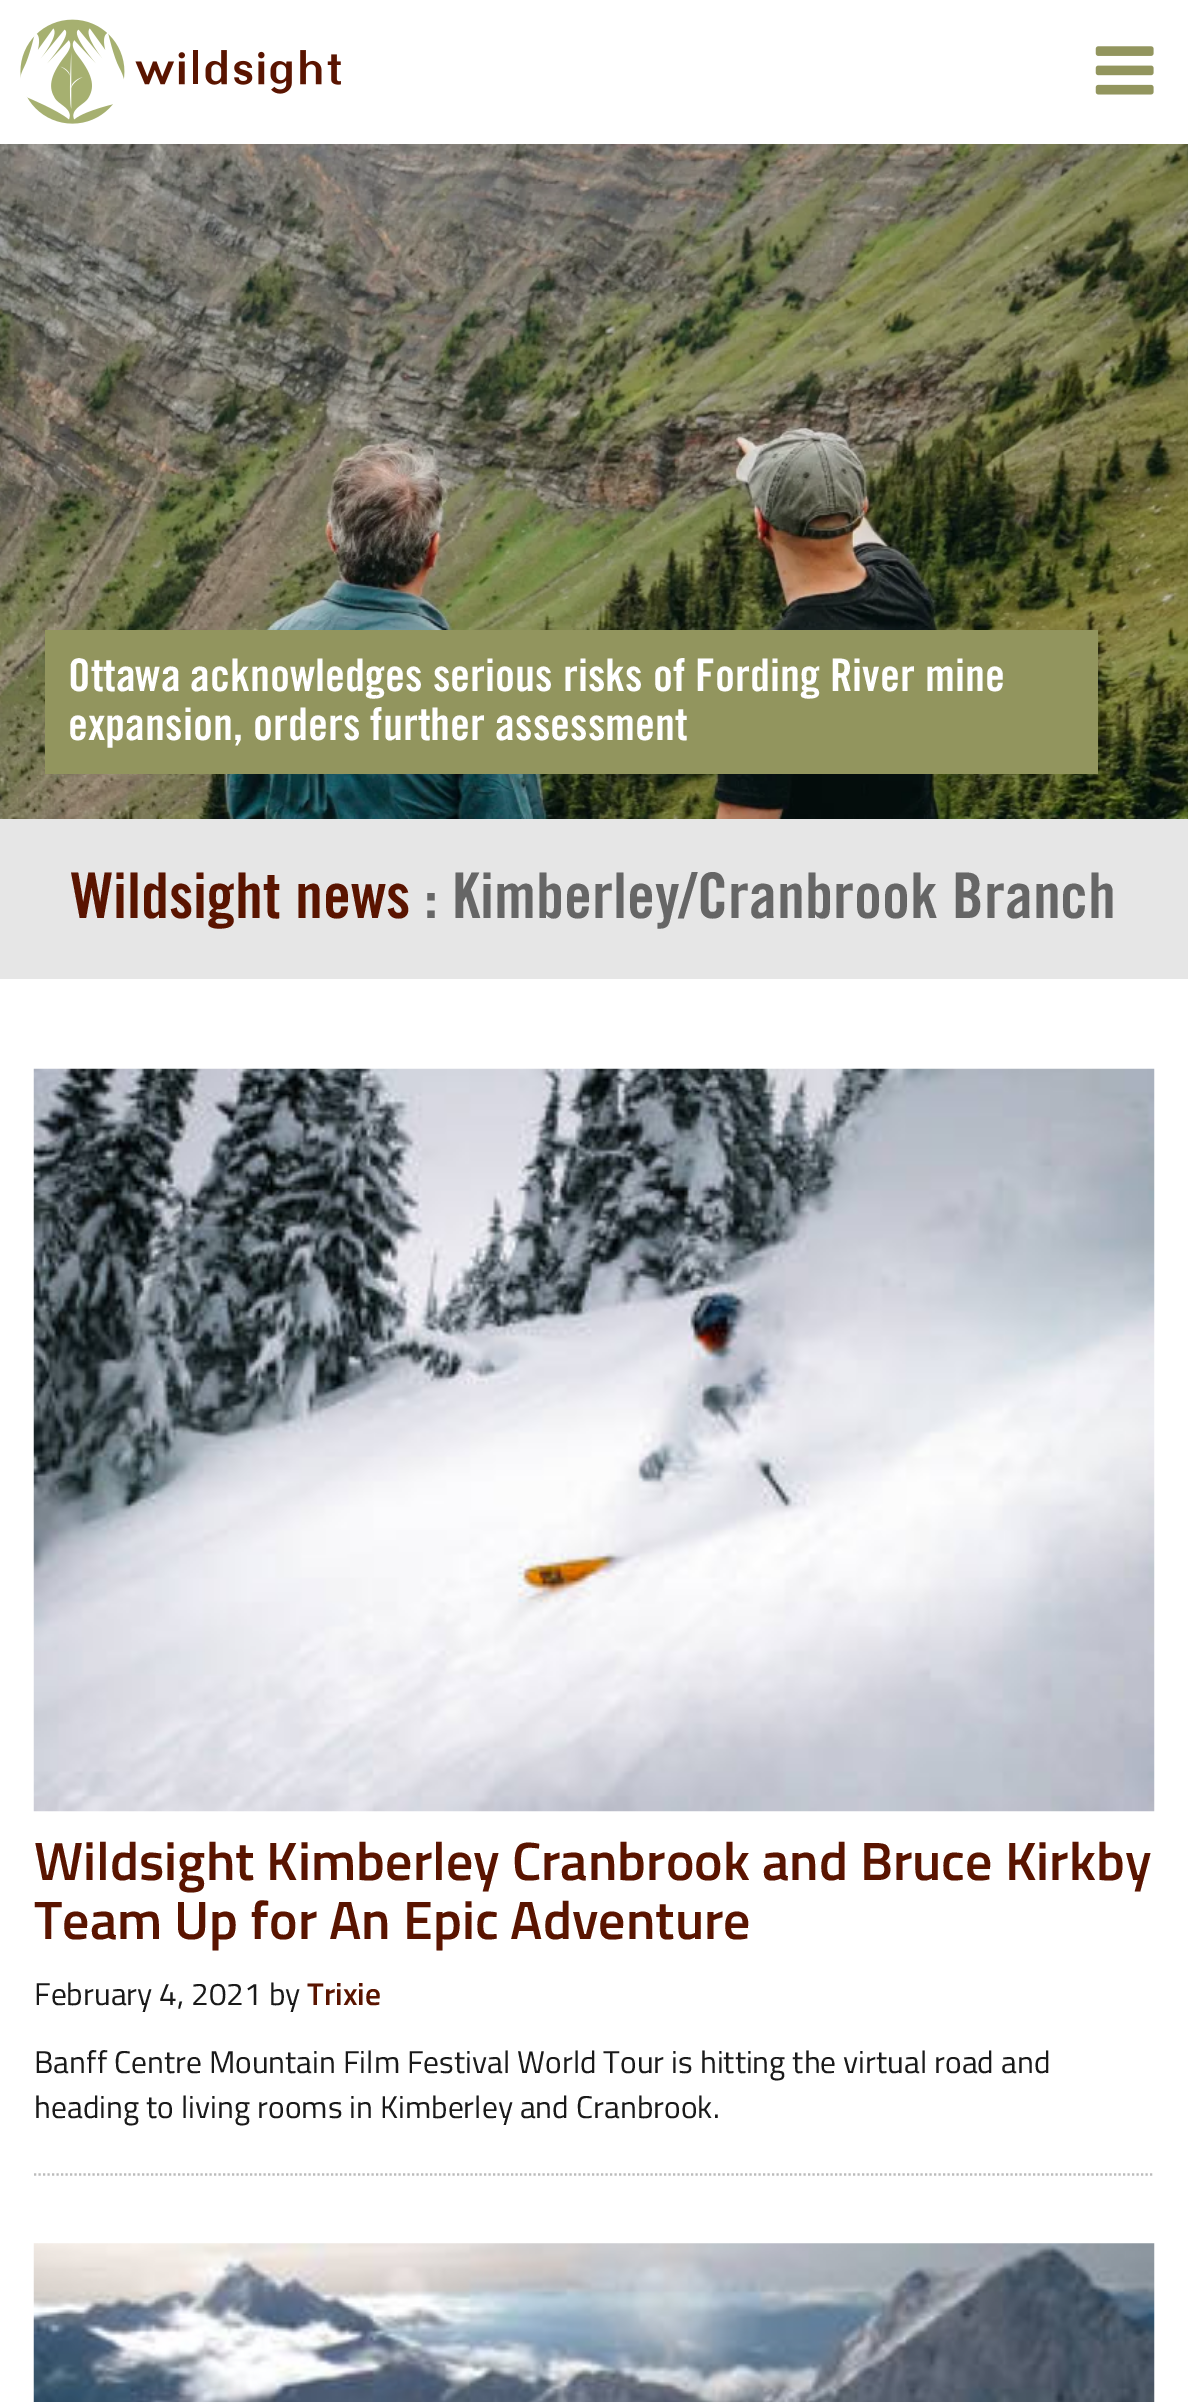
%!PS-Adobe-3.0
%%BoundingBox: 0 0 1188 2402
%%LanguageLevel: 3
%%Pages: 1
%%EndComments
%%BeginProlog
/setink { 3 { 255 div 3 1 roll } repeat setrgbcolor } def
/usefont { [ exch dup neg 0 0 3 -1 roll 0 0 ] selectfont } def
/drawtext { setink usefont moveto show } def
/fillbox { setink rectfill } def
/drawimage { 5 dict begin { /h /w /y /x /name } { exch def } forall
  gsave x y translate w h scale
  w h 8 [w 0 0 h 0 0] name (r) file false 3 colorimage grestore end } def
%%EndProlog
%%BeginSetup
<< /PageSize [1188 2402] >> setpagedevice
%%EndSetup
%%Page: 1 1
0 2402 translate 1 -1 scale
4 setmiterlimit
0 0 1188 2402 255 255 255 fillbox
(assets/img1.rgb) 20 19 321 105 drawimage
(assets/img2.rgb) 1095 46 59 49 drawimage
(assets/img3.rgb) 0 144 1188 675 drawimage
45 630 1053 144 146 149 94 fillbox
(Ottawa acknowledges serious risks of Fording River mine) 68 691 /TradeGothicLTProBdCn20-Regular 45 255 255 255 drawtext
(expansion, orders further assessment) 68 740 /TradeGothicLTProBdCn20-Regular 45 255 255 255 drawtext
0 819 1188 160 230 230 230 fillbox
(Wildsight news) 71 918 /TradeGothicLTProBdCn20-Regular 63 90 20 0 drawtext
(: Kimberley/Cranbrook Branch) 424 918 /TradeGothicLTProBdCn20-Regular 63 102 102 102 drawtext
(assets/img4.rgb) 33 1068 1122 744 drawimage
(Wildsight Kimberley Cranbrook and Bruce Kirkby) 34 1880 /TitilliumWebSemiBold-SemiBold 54 90 20 0 drawtext
(Team Up for An Epic Adventure) 34 1939 /TitilliumWebSemiBold-SemiBold 54 90 20 0 drawtext
(February 4, 2021 by) 34 2005 /TitilliumWeb-Regular 31.5 26 26 26 drawtext
(Trixie) 307 2005 /TitilliumWebSemiBold-SemiBold 31.5 90 20 0 drawtext
(Banff Centre Mountain Film Festival World Tour is hitting the virtual road and) 34 2073 /TitilliumWeb-Regular 31.5 26 26 26 drawtext
(heading to living rooms in Kimberley and Cranbrook.) 34 2118 /TitilliumWeb-Regular 31.5 26 26 26 drawtext
187 187 187 setink
2.2 setlinewidth
[2.25 2.25] 0 setdash
34 2174.5 moveto 1154 2174.5 lineto stroke
(assets/img5.rgb) 33 2243 1122 159 drawimage
showpage
%%EOF
